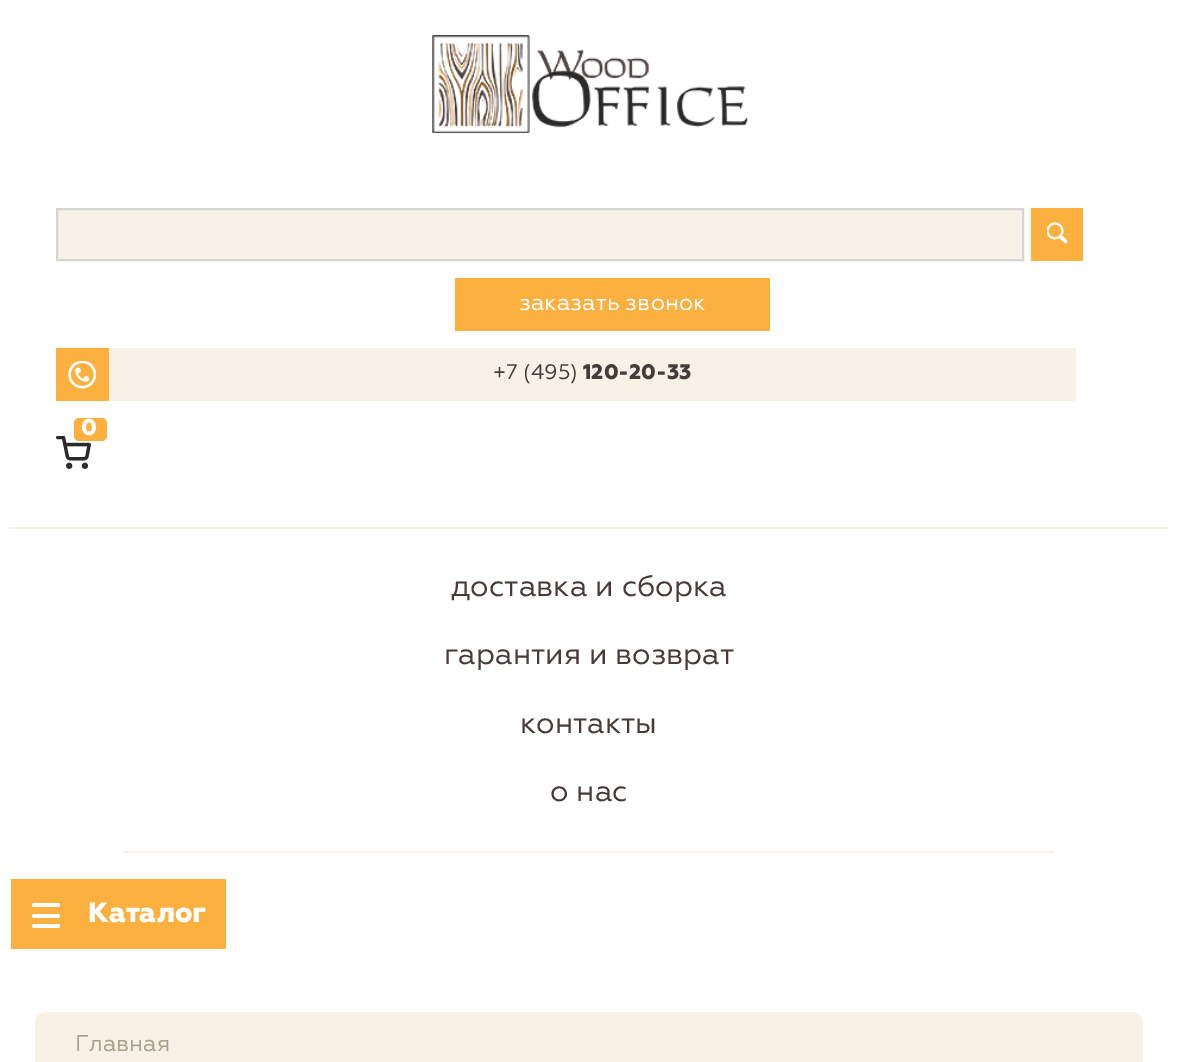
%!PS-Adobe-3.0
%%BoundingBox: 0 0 1177 1062
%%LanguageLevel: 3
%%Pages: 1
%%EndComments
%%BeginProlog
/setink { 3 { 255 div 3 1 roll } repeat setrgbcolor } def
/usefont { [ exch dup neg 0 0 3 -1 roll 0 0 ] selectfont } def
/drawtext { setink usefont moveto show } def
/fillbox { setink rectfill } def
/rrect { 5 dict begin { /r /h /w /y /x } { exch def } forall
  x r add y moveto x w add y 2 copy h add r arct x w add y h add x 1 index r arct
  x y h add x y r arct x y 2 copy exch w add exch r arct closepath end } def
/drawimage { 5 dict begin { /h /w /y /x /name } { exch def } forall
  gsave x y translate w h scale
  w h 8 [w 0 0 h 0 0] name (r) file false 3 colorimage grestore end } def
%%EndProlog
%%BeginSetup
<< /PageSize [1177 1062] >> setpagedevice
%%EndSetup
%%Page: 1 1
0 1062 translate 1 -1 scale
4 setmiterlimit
0 0 1177 1062 255 255 255 fillbox
9 527 1160 2 248 242 230 fillbox
(assets/img1.rgb) 432 35 316 98 drawimage
248 241 231 setink
57 209 moveto 1023 209 lineto 1023 260 lineto 57 260 lineto closepath gsave fill grestore
212 212 212 setink
2 setlinewidth
stroke
1031 208 52 53 252 176 64 fillbox
(assets/img2.rgb) 1047 222 21 22 drawimage
455 278 315 53 252 176 64 fillbox
(заказать звонок) 519 310 /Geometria-Regular 22.75 255 255 255 drawtext
56 348 53 53 252 176 64 fillbox
(assets/img3.rgb) 68 361 28 28 drawimage
109 348 967 53 248 241 231 fillbox
(+7 \(495\)) 493 379 /Geometria-Regular 21 71 59 57 drawtext
(120-20-33) 583 379 /Geometria-ExtraBold 21 71 59 57 drawtext
(assets/img4.rgb) 56 436 35 33 drawimage
251 176 64 setink
74 418 33 23 5 rrect fill
(0) 81 435 /Geometria-ExtraBold 22.75 255 255 255 drawtext
124 851 930 2 248 242 230 fillbox
(доставка и сборка) 451 596 /Geometria-Regular 29.75 71 59 57 drawtext
(гарантия и возврат) 444 664 /Geometria-Regular 29.75 71 59 57 drawtext
(контакты) 520 733 /Geometria-Regular 29.75 71 59 57 drawtext
(о нас) 550 801 /Geometria-Regular 29.75 71 59 57 drawtext
11 879 215 70 252 176 64 fillbox
255 255 255 setink
32 903 28 4 2 rrect fill
32 914 28 4 2 rrect fill
32 924 28 4 2 rrect fill
(Каталог) 88 922 /Geometria-ExtraBold 28 255 255 255 drawtext
247 241 230 setink
35 1012 1108 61 11 rrect fill
(Главная) 75 1051 /Geometria-Regular 22.75 169 161 142 drawtext
showpage
%%EOF
